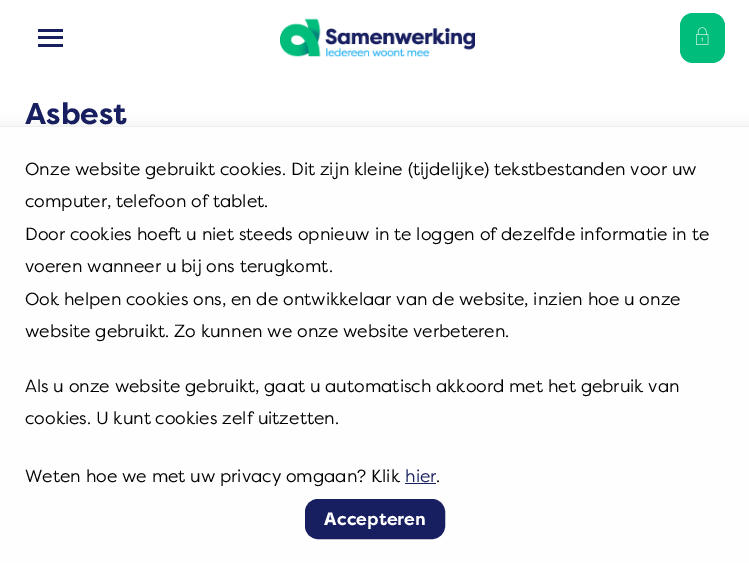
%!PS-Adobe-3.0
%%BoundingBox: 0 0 749 563
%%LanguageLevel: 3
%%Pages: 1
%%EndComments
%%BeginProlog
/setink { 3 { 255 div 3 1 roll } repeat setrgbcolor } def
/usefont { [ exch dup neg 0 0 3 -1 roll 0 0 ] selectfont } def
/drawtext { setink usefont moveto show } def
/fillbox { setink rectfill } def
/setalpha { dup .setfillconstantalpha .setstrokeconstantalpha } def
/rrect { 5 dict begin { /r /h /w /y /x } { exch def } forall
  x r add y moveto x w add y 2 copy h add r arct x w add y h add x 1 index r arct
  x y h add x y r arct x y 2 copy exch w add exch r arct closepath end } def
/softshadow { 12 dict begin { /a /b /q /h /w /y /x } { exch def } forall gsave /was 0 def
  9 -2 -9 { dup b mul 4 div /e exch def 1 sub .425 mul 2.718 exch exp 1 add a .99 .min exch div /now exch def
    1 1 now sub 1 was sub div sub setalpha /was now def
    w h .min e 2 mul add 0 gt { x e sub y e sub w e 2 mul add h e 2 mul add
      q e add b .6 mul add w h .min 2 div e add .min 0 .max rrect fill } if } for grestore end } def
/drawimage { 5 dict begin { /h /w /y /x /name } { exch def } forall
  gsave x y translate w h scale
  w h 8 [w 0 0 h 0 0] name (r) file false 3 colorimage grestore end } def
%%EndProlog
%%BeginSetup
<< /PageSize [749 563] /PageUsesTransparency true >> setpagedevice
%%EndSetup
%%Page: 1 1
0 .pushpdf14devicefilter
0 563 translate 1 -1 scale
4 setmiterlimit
0 0 749 563 255 255 255 fillbox
38 29 25 3 24 31 96 fillbox
38 36 25 3 24 31 96 fillbox
38 44 25 3 24 31 96 fillbox
(assets/img1.rgb) 280 18 195 39 drawimage
0 189 123 setink
680 13 45 50 13 rrect fill
(assets/img2.rgb) 696 27 13 18 drawimage
(Asbest) 25 124 /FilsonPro-Bold 30 24 31 96 drawtext
0 0 0 setink
-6 120 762 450 0 6 0.04 softshadow
0 127 749 436 254 254 254 fillbox
0 126 749 1 238 238 238 fillbox
(Onze website gebruikt cookies. Dit zijn kleine \(tijdelijke\) tekstbestanden voor uw) 25 175 /FilsonPro-Regular 17.5 0 0 0 drawtext
(computer, telefoon of tablet.) 25 207 /FilsonPro-Regular 17.5 0 0 0 drawtext
(Door cookies hoeft u niet steeds opnieuw in te loggen of dezelfde informatie in te) 25 240 /FilsonPro-Regular 17.5 0 0 0 drawtext
(voeren wanneer u bij ons terugkomt.) 25 272 /FilsonPro-Regular 17.5 0 0 0 drawtext
(Ook helpen cookies ons, en de ontwikkelaar van de website, inzien hoe u onze) 25 305 /FilsonPro-Regular 17.5 0 0 0 drawtext
(website gebruikt. Zo kunnen we onze website verbeteren.) 25 337 /FilsonPro-Regular 17.5 0 0 0 drawtext
(Als u onze website gebruikt, gaat u automatisch akkoord met het gebruik van) 25 392 /FilsonPro-Regular 17.5 0 0 0 drawtext
(cookies. U kunt cookies zelf uitzetten.) 25 424 /FilsonPro-Regular 17.5 0 0 0 drawtext
(Weten hoe we met uw privacy omgaan? Klik) 25 482 /FilsonPro-Regular 17.5 0 0 0 drawtext
(hier) 405 482 /FilsonPro-Regular 17.5 24 31 96 drawtext
405 483 31 1 24 31 96 fillbox
(.) 436 482 /FilsonPro-Regular 17.5 0 0 0 drawtext
24 31 96 setink
305.5 499.5 139 39 12.5 rrect gsave fill grestore
stroke
(A) 324 525 /NotoSans-ExtraBold 17.5 255 255 255 drawtext
(ccepteren) 337 525 /FilsonPro-Bold 17.5 255 255 255 drawtext
.poppdf14devicefilter showpage
%%EOF
